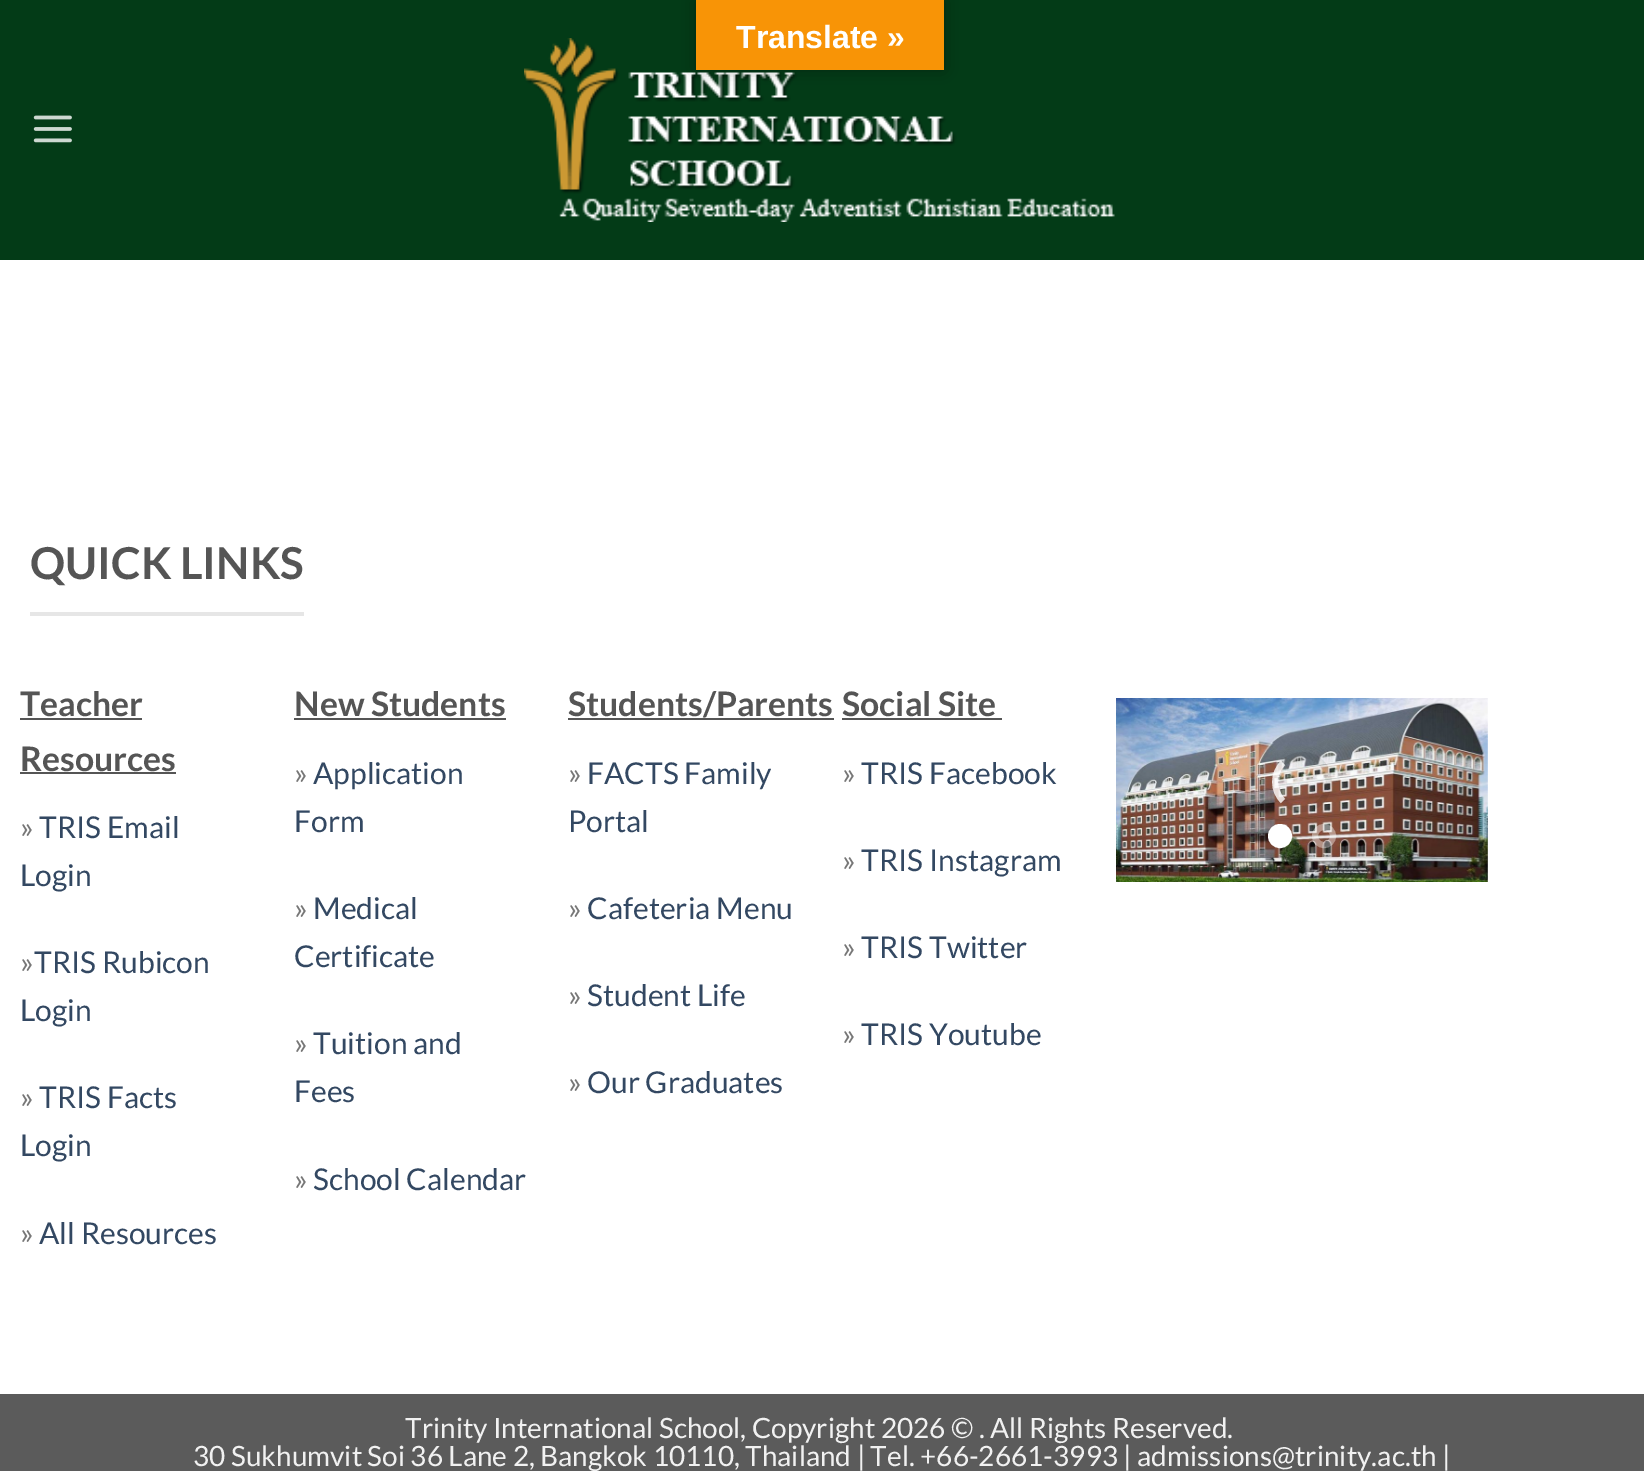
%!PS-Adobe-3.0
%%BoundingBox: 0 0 1644 1471
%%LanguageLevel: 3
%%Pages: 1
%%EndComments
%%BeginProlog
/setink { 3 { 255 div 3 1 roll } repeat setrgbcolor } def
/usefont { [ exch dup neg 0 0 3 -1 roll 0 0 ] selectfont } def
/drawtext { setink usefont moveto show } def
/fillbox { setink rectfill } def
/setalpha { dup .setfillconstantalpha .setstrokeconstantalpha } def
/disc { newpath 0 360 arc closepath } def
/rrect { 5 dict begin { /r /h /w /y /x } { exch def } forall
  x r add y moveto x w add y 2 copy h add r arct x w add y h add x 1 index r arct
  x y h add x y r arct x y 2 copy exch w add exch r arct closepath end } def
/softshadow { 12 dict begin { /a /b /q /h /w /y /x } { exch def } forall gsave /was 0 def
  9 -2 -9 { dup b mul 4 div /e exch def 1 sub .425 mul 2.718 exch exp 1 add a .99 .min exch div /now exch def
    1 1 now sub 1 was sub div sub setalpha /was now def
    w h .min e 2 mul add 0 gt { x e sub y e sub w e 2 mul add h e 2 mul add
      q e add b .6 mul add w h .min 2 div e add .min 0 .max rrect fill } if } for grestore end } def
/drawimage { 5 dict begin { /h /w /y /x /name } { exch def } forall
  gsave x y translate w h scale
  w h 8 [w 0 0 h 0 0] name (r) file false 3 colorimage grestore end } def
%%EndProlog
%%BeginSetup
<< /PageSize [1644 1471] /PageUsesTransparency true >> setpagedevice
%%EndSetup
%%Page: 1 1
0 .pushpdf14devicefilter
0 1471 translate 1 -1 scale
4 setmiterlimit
0 0 1644 1471 255 255 255 fillbox
0 0 1644 260 3 59 23 fillbox
(assets/img2.rgb) 524 38 591 184 drawimage
0 0 0 setink
696 0 248 70 0 9 0.3 softshadow
696 0 248 70 248 148 6 fillbox
(Translate ») 736 48 /LiberationSans-Bold 32 255 255 255 drawtext
(assets/img1.rgb) 33 115 39 28 drawimage
30 612 274 4 230 230 230 fillbox
(QUICK LINKS) 30 579 /Lato-Bold 44 85 85 85 drawtext
(Teacher) 20 716 /Lato-Bold 33.75 85 85 85 drawtext
20 718 122 2 85 85 85 fillbox
(Resources) 20 771 /Lato-Bold 33.75 85 85 85 drawtext
20 772 156 2 85 85 85 fillbox
(») 20 838 /Lato-Regular 30 119 119 119 drawtext
(TRIS Email) 39 838 /Lato-Regular 30 51 72 98 drawtext
(Login) 20 886 /Lato-Regular 30 51 72 98 drawtext
(») 20 973 /Lato-Regular 30 119 119 119 drawtext
(TRIS Rubicon) 34 973 /Lato-Regular 30 51 72 98 drawtext
(Login) 20 1021 /Lato-Regular 30 51 72 98 drawtext
(») 20 1108 /Lato-Regular 30 119 119 119 drawtext
(TRIS Facts) 39 1108 /Lato-Regular 30 51 72 98 drawtext
(Login) 20 1156 /Lato-Regular 30 51 72 98 drawtext
(») 20 1244 /Lato-Regular 30 119 119 119 drawtext
(All Resources) 39 1244 /Lato-Regular 30 51 72 98 drawtext
(New Students) 294 716 /Lato-Bold 33.75 85 85 85 drawtext
294 718 212 2 85 85 85 fillbox
(») 294 784 /Lato-Regular 30 119 119 119 drawtext
(Application) 313 784 /Lato-Regular 30 51 72 98 drawtext
(Form) 294 832 /Lato-Regular 30 51 72 98 drawtext
(») 294 919 /Lato-Regular 30 119 119 119 drawtext
(Medical) 313 919 /Lato-Regular 30 51 72 98 drawtext
(Certificate) 294 967 /Lato-Regular 30 51 72 98 drawtext
(») 294 1054 /Lato-Regular 30 119 119 119 drawtext
(Tuition and) 313 1054 /Lato-Regular 30 51 72 98 drawtext
(Fees) 294 1102 /Lato-Regular 30 51 72 98 drawtext
(») 294 1190 /Lato-Regular 30 119 119 119 drawtext
(School Calendar) 313 1190 /Lato-Regular 30 51 72 98 drawtext
(Students/Parents) 568 716 /Lato-Bold 33.75 85 85 85 drawtext
568 718 266 2 85 85 85 fillbox
(») 568 784 /Lato-Regular 30 119 119 119 drawtext
(FACTS Family) 587 784 /Lato-Regular 30 51 72 98 drawtext
(Portal) 568 832 /Lato-Regular 30 51 72 98 drawtext
(») 568 919 /Lato-Regular 30 119 119 119 drawtext
(Cafeteria Menu) 587 919 /Lato-Regular 30 51 72 98 drawtext
(») 568 1006 /Lato-Regular 30 119 119 119 drawtext
(Student Life) 587 1006 /Lato-Regular 30 51 72 98 drawtext
(») 568 1093 /Lato-Regular 30 119 119 119 drawtext
(Our Graduates) 587 1093 /Lato-Regular 30 51 72 98 drawtext
(Social Site) 842 716 /Lato-Bold 33.75 85 85 85 drawtext
842 718 160 2 85 85 85 fillbox
(») 842 784 /Lato-Regular 30 119 119 119 drawtext
(TRIS Facebook) 861 784 /Lato-Regular 30 51 72 98 drawtext
(») 842 871 /Lato-Regular 30 119 119 119 drawtext
(TRIS Instagram) 861 871 /Lato-Regular 30 51 72 98 drawtext
(») 842 958 /Lato-Regular 30 119 119 119 drawtext
(TRIS Twitter) 861 958 /Lato-Regular 30 51 72 98 drawtext
(») 842 1045 /Lato-Regular 30 119 119 119 drawtext
(TRIS Youtube) 861 1045 /Lato-Regular 30 51 72 98 drawtext
(assets/img3.rgb) 1116 698 372 184 drawimage
255 255 255 setink
1280 836 9 disc gsave fill grestore
6 setlinewidth
stroke
0.4 setalpha
1324 836 9 disc stroke
0.08 setalpha
0 0 0 setink
1283 763 moveto 1289 756.5 1298.5 754 1307.5 755.5 curveto 1339 762 1334 809 1302 809 curveto 1295 809 1288 806 1283 801 curveto stroke
0.8 setalpha
255 255 255 setink
1283 801 moveto 1272.5 790.5 1272.5 773.5 1283 763 curveto stroke
1 setalpha
0 1394 1644 77 91 91 91 fillbox
(Trinity International School, Copyright 2026 © . All Rights Reserved.) 405 1438 /Lato-Regular 28 241 241 241 drawtext
(30 Sukhumvit Soi 36 Lane 2, Bangkok 10110, Thailand | Tel. +66-2661-3993 | admissions@trinity.ac.th |) 193 1466 /Lato-Regular 28 241 241 241 drawtext
.poppdf14devicefilter showpage
%%EOF
